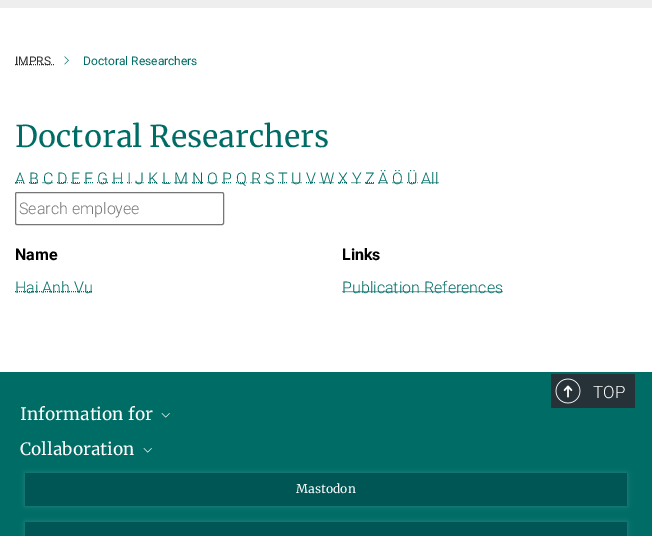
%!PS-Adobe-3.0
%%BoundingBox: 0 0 652 536
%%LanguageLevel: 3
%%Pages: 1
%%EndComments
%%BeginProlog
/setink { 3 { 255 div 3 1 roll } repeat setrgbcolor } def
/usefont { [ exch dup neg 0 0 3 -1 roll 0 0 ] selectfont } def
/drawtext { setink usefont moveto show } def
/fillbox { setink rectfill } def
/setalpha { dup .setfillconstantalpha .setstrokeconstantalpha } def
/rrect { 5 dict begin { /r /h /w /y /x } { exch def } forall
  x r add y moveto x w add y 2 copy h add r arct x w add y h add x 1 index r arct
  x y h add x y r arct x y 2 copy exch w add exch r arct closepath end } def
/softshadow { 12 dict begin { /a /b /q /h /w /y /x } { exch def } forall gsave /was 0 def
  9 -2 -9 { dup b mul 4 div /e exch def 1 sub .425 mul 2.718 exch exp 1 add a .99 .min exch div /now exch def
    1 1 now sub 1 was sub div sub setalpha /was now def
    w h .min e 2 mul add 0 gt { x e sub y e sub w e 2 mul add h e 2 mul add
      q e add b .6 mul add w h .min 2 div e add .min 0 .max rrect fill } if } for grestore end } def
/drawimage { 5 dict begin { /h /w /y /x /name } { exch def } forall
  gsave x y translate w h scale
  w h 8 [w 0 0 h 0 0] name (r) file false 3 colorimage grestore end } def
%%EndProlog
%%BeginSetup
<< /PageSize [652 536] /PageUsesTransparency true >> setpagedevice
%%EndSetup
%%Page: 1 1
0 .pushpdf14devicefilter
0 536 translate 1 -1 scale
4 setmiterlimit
0 0 652 536 255 255 255 fillbox
0 0 652 8 238 238 238 fillbox
51 51 51 setink
[1 1] 0 setdash
15 64.5 moveto 51 64.5 lineto stroke
(IMPRS) 15 65 /Roboto-Regular 12 51 51 51 drawtext
[] 0 setdash
51 64.5 moveto 52 64.5 lineto 53 64.5 moveto 54 64.5 lineto stroke
(assets/img1.rgb) 64 56 5 9 drawimage
(Doctoral Researchers) 83 65 /Roboto-Regular 12 0 108 102 drawtext
(Doctoral Researchers) 15 147 /Merriweather-Regular 30 0 108 102 drawtext
[1 1] 0 setdash
15 182.5 moveto 25 182.5 lineto stroke
(A) 15 184 /Roboto-Light 16 0 108 102 drawtext
29 182.5 moveto 38.5 182.5 lineto stroke
(B) 29 184 /Roboto-Light 16 0 108 102 drawtext
42.5 182.5 moveto 53 182.5 lineto stroke
(C) 43 184 /Roboto-Light 16 0 108 102 drawtext
57 182.5 moveto 67.5 182.5 lineto stroke
(D) 57 184 /Roboto-Light 16 0 108 102 drawtext
71 182.5 moveto 80.5 182.5 lineto stroke
(E) 71 184 /Roboto-Light 16 0 108 102 drawtext
84 182.5 moveto 93 182.5 lineto stroke
(F) 84 184 /Roboto-Light 16 0 108 102 drawtext
97 182.5 moveto 108 182.5 lineto stroke
(G) 97 184 /Roboto-Light 16 0 108 102 drawtext
112 182.5 moveto 123.5 182.5 lineto stroke
(H) 112 184 /Roboto-Light 16 0 108 102 drawtext
[] 0 setdash
127 182.5 moveto 128 182.5 lineto 129 182.5 moveto 130 182.5 lineto 131 182.5 moveto 131.5 182.5 lineto stroke
(I) 127 184 /Roboto-Light 16 0 108 102 drawtext
[1 1] 0 setdash
135.5 182.5 moveto 144 182.5 lineto stroke
(J) 135 184 /Roboto-Light 16 0 108 102 drawtext
148 182.5 moveto 158 182.5 lineto stroke
(K) 148 184 /Roboto-Light 16 0 108 102 drawtext
162 182.5 moveto 170.5 182.5 lineto stroke
(L) 162 184 /Roboto-Light 16 0 108 102 drawtext
174.5 182.5 moveto 188 182.5 lineto stroke
(M) 174 184 /Roboto-Light 16 0 108 102 drawtext
192 182.5 moveto 203.5 182.5 lineto stroke
(N) 192 184 /Roboto-Light 16 0 108 102 drawtext
207.5 182.5 moveto 218 182.5 lineto stroke
(O) 207 184 /Roboto-Light 16 0 108 102 drawtext
222 182.5 moveto 232 182.5 lineto stroke
(P) 222 184 /Roboto-Light 16 0 108 102 drawtext
236 182.5 moveto 246.5 182.5 lineto stroke
(Q) 236 184 /Roboto-Light 16 0 108 102 drawtext
250.5 182.5 moveto 260.5 182.5 lineto stroke
(R) 251 184 /Roboto-Light 16 0 108 102 drawtext
264.5 182.5 moveto 274 182.5 lineto stroke
(S) 265 184 /Roboto-Light 16 0 108 102 drawtext
278 182.5 moveto 287.5 182.5 lineto stroke
(T) 278 184 /Roboto-Light 16 0 108 102 drawtext
291.5 182.5 moveto 302 182.5 lineto stroke
(U) 291 184 /Roboto-Light 16 0 108 102 drawtext
306 182.5 moveto 315.5 182.5 lineto stroke
(V) 306 184 /Roboto-Light 16 0 108 102 drawtext
319.5 182.5 moveto 334 182.5 lineto stroke
(W) 320 184 /Roboto-Light 16 0 108 102 drawtext
338 182.5 moveto 347.5 182.5 lineto stroke
(X) 338 184 /Roboto-Light 16 0 108 102 drawtext
351.5 182.5 moveto 361 182.5 lineto stroke
(Y) 352 184 /Roboto-Light 16 0 108 102 drawtext
365 182.5 moveto 374.5 182.5 lineto stroke
(Z) 365 184 /Roboto-Light 16 0 108 102 drawtext
378.5 182.5 moveto 388.5 182.5 lineto stroke
(Ä) 378 184 /Roboto-Light 16 0 108 102 drawtext
392.5 182.5 moveto 403 182.5 lineto stroke
(Ö) 392 184 /Roboto-Light 16 0 108 102 drawtext
407 182.5 moveto 417.5 182.5 lineto stroke
(Ü) 407 184 /Roboto-Light 16 0 108 102 drawtext
421.5 182.5 moveto 438.5 182.5 lineto stroke
(All) 421 184 /Roboto-Light 16 0 108 102 drawtext
118 118 118 setink
[] 0 setdash
15.5 192.5 208 32 1.5 rrect stroke
(Search employee) 19 214 /Roboto-Light 16 117 117 117 drawtext
(Name) 15 260 /Roboto-Bold 16 0 0 0 drawtext
(Links) 342 260 /Roboto-Bold 16 0 0 0 drawtext
0 108 102 setink
[1 1] 0 setdash
15 291.5 moveto 92.5 291.5 lineto stroke
(Hai Anh Vu) 15 293 /Roboto-Light 16 0 108 102 drawtext
342.5 291.5 moveto 503 291.5 lineto stroke
(Publication References) 342 293 /Roboto-Light 16 0 108 102 drawtext
0 372 652 164 0 108 102 fillbox
551 374 84 34 38 50 56 fillbox
(assets/img2.rgb) 563 385 10 13 drawimage
(assets/img3.rgb) 555 378 26 26 drawimage
(TOP) 593 398 /Roboto-Light 17 255 255 255 drawtext
(Information for) 20 420 /Merriweather-Regular 17 255 255 255 drawtext
(assets/img4.rgb) 161 413 9 5 drawimage
(Collaboration) 20 455 /Merriweather-Regular 17 255 255 255 drawtext
(assets/img4.rgb) 143 448 9 5 drawimage
25 473 602 33 0 2.5 0.15 softshadow
25 473 602 33 0 85 85 fillbox
(Mastodon) 296 493 /Merriweather-Regular 12 255 255 255 drawtext
25 522 602 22 0 2.5 0.15 softshadow
25 522 602 14 0 85 85 fillbox
.poppdf14devicefilter showpage
%%EOF
